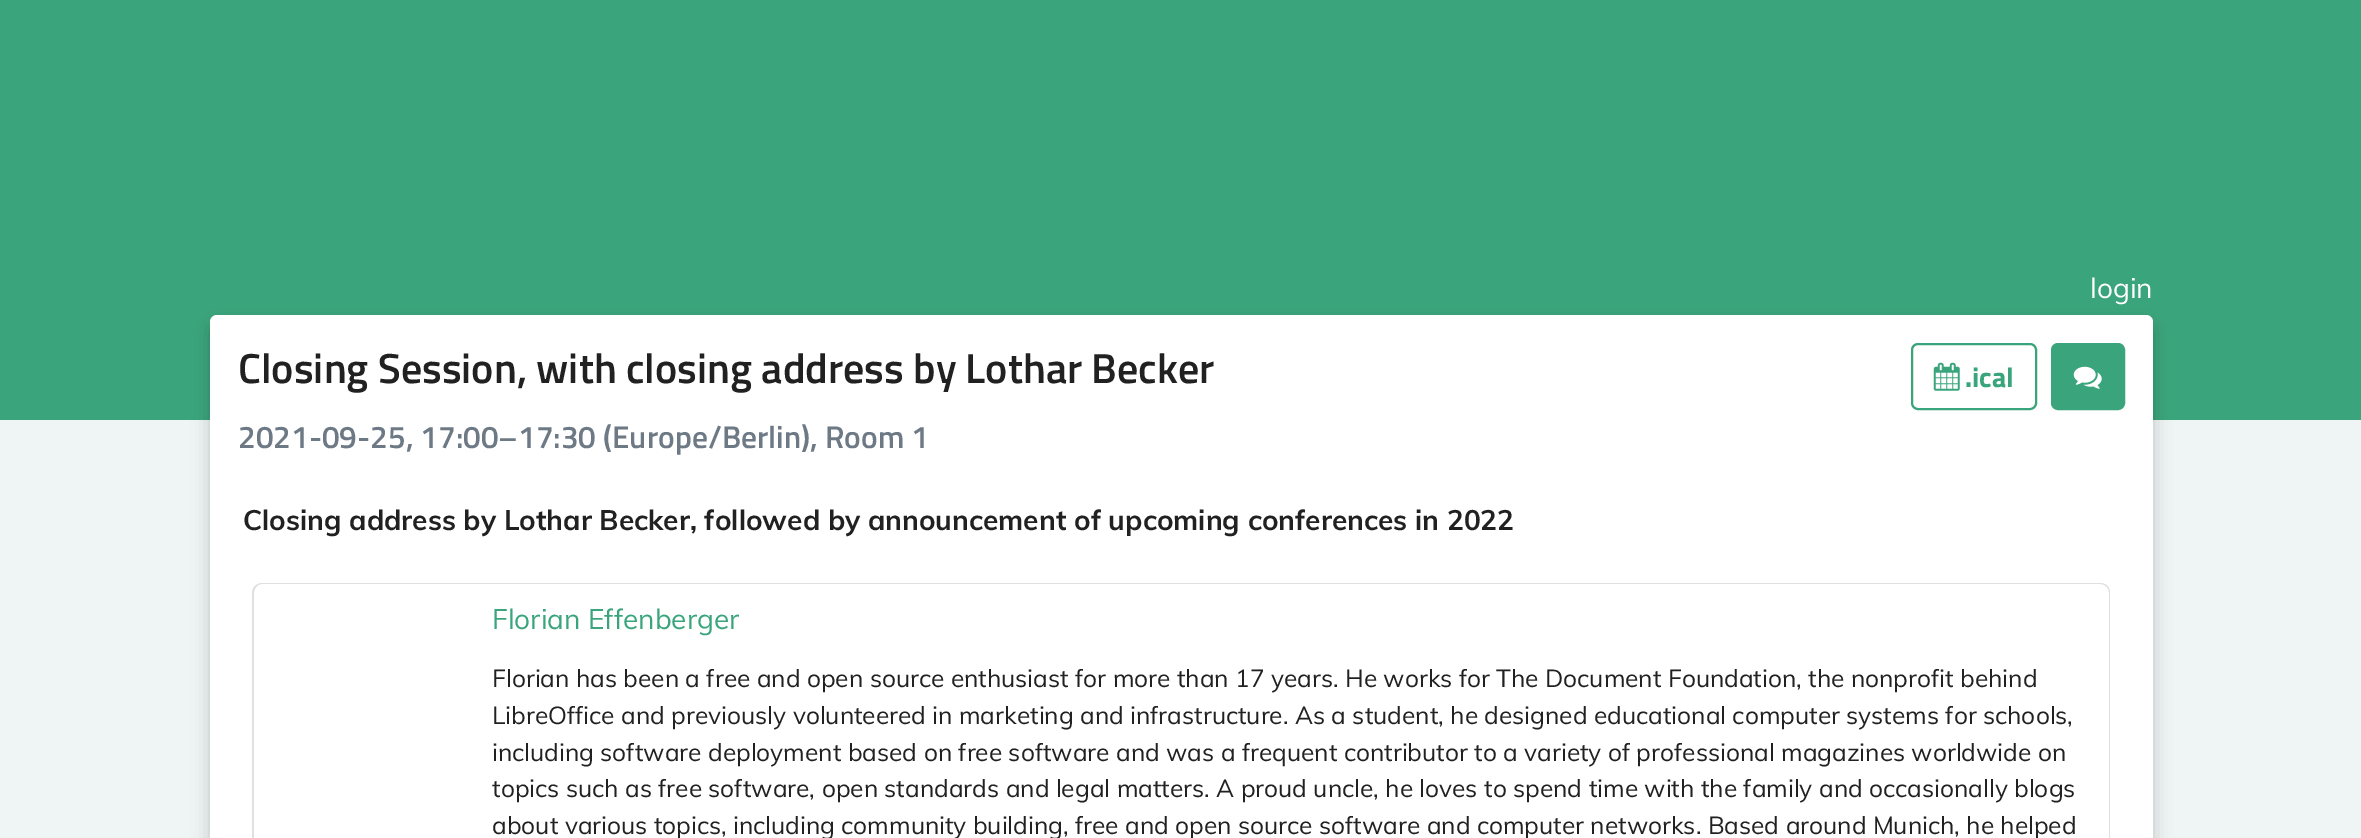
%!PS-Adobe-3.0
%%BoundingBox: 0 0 2361 838
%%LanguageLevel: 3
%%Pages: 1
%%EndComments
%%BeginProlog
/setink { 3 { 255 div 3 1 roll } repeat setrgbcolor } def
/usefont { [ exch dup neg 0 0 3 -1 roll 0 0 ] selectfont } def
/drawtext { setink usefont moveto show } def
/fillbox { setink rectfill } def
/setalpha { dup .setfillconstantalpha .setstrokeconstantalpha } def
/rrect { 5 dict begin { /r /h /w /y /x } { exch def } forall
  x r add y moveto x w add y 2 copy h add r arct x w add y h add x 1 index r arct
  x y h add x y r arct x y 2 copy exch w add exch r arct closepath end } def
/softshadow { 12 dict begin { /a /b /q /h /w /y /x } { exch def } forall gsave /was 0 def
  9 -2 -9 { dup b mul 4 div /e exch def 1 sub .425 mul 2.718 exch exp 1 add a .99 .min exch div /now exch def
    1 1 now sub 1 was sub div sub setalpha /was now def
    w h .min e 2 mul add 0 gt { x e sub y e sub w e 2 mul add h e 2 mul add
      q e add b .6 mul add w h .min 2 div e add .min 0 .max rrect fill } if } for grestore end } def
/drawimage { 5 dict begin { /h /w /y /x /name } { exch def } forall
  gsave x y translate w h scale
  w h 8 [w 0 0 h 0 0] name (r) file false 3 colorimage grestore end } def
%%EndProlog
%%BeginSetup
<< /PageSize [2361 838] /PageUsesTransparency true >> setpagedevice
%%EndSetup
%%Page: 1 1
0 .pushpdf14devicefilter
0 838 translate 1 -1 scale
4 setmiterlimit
0 0 2361 838 239 245 244 fillbox
0 0 2361 420 58 165 124 fillbox
(login) 2090 298 /Muli-Regular 28 255 255 255 drawtext
0 0 0 setink
210 324 1943 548 7 9 0.2 softshadow
255 255 255 setink
210 315 1943 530 7 rrect fill
(Closing Session, with closing address by Lothar Becker) 238 383 /TitilliumWeb-SemiBold 42 33 33 33 drawtext
58 165 124 setink
2 setlinewidth
1912 344 124 65 6 rrect stroke
(assets/img1.rgb) 1933 362 27 29 drawimage
(.ical) 1965 387 /TitilliumWeb-Bold 28 58 165 124 drawtext
2052 344 72 65 6 rrect gsave fill grestore
stroke
(assets/img2.rgb) 2073 366 29 23 drawimage
(2021-09-25, 17:00–17:30 \(Europe/Berlin\), Room 1) 238 448 /TitilliumWeb-SemiBold 31.5 109 122 134 drawtext
(Closing address by Lothar Becker, followed by announcement of upcoming conferences in 2022) 243 530 /Muli-Bold 28 33 33 33 drawtext
224 224 224 setink
262 583 moveto 478 583 lineto 478 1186 lineto 262 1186 lineto 257 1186 252 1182 252 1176 curveto 252 593 lineto 252 587 257 583 262 583 curveto closepath 262 584 moveto 478 584 lineto 478 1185 lineto 262 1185 lineto 258 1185 254 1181 254 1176 curveto 254 593 lineto 254 588 258 584 262 584 curveto closepath eofill
478 583 moveto 2100 583 lineto 2106 583 2110 587 2110 593 curveto 2110 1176 lineto 2110 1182 2106 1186 2100 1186 curveto 478 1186 lineto closepath 478 584 moveto 2100 584 lineto 2105 584 2109 588 2109 593 curveto 2109 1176 lineto 2109 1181 2105 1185 2100 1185 curveto 478 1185 lineto closepath eofill
(Florian Effenberger) 492 629 /Muli-Regular 28 58 165 124 drawtext
(Florian has been a free and open source enthusiast for more than 17 years. He works for The Document Foundation, the nonprofit behind) 492 687 /Muli-Regular 24.5 33 33 33 drawtext
(LibreOffice and previously volunteered in marketing and infrastructure. As a student, he designed educational computer systems for schools,) 492 724 /Muli-Regular 24.5 33 33 33 drawtext
(including software deployment based on free software and was a frequent contributor to a variety of professional magazines worldwide on) 492 761 /Muli-Regular 24.5 33 33 33 drawtext
(topics such as free software, open standards and legal matters. A proud uncle, he loves to spend time with the family and occasionally blogs) 492 797 /Muli-Regular 24.5 33 33 33 drawtext
(about various topics, including community building, free and open source software and computer networks. Based around Munich, he helped) 492 834 /Muli-Regular 24.5 33 33 33 drawtext
.poppdf14devicefilter showpage
%%EOF
